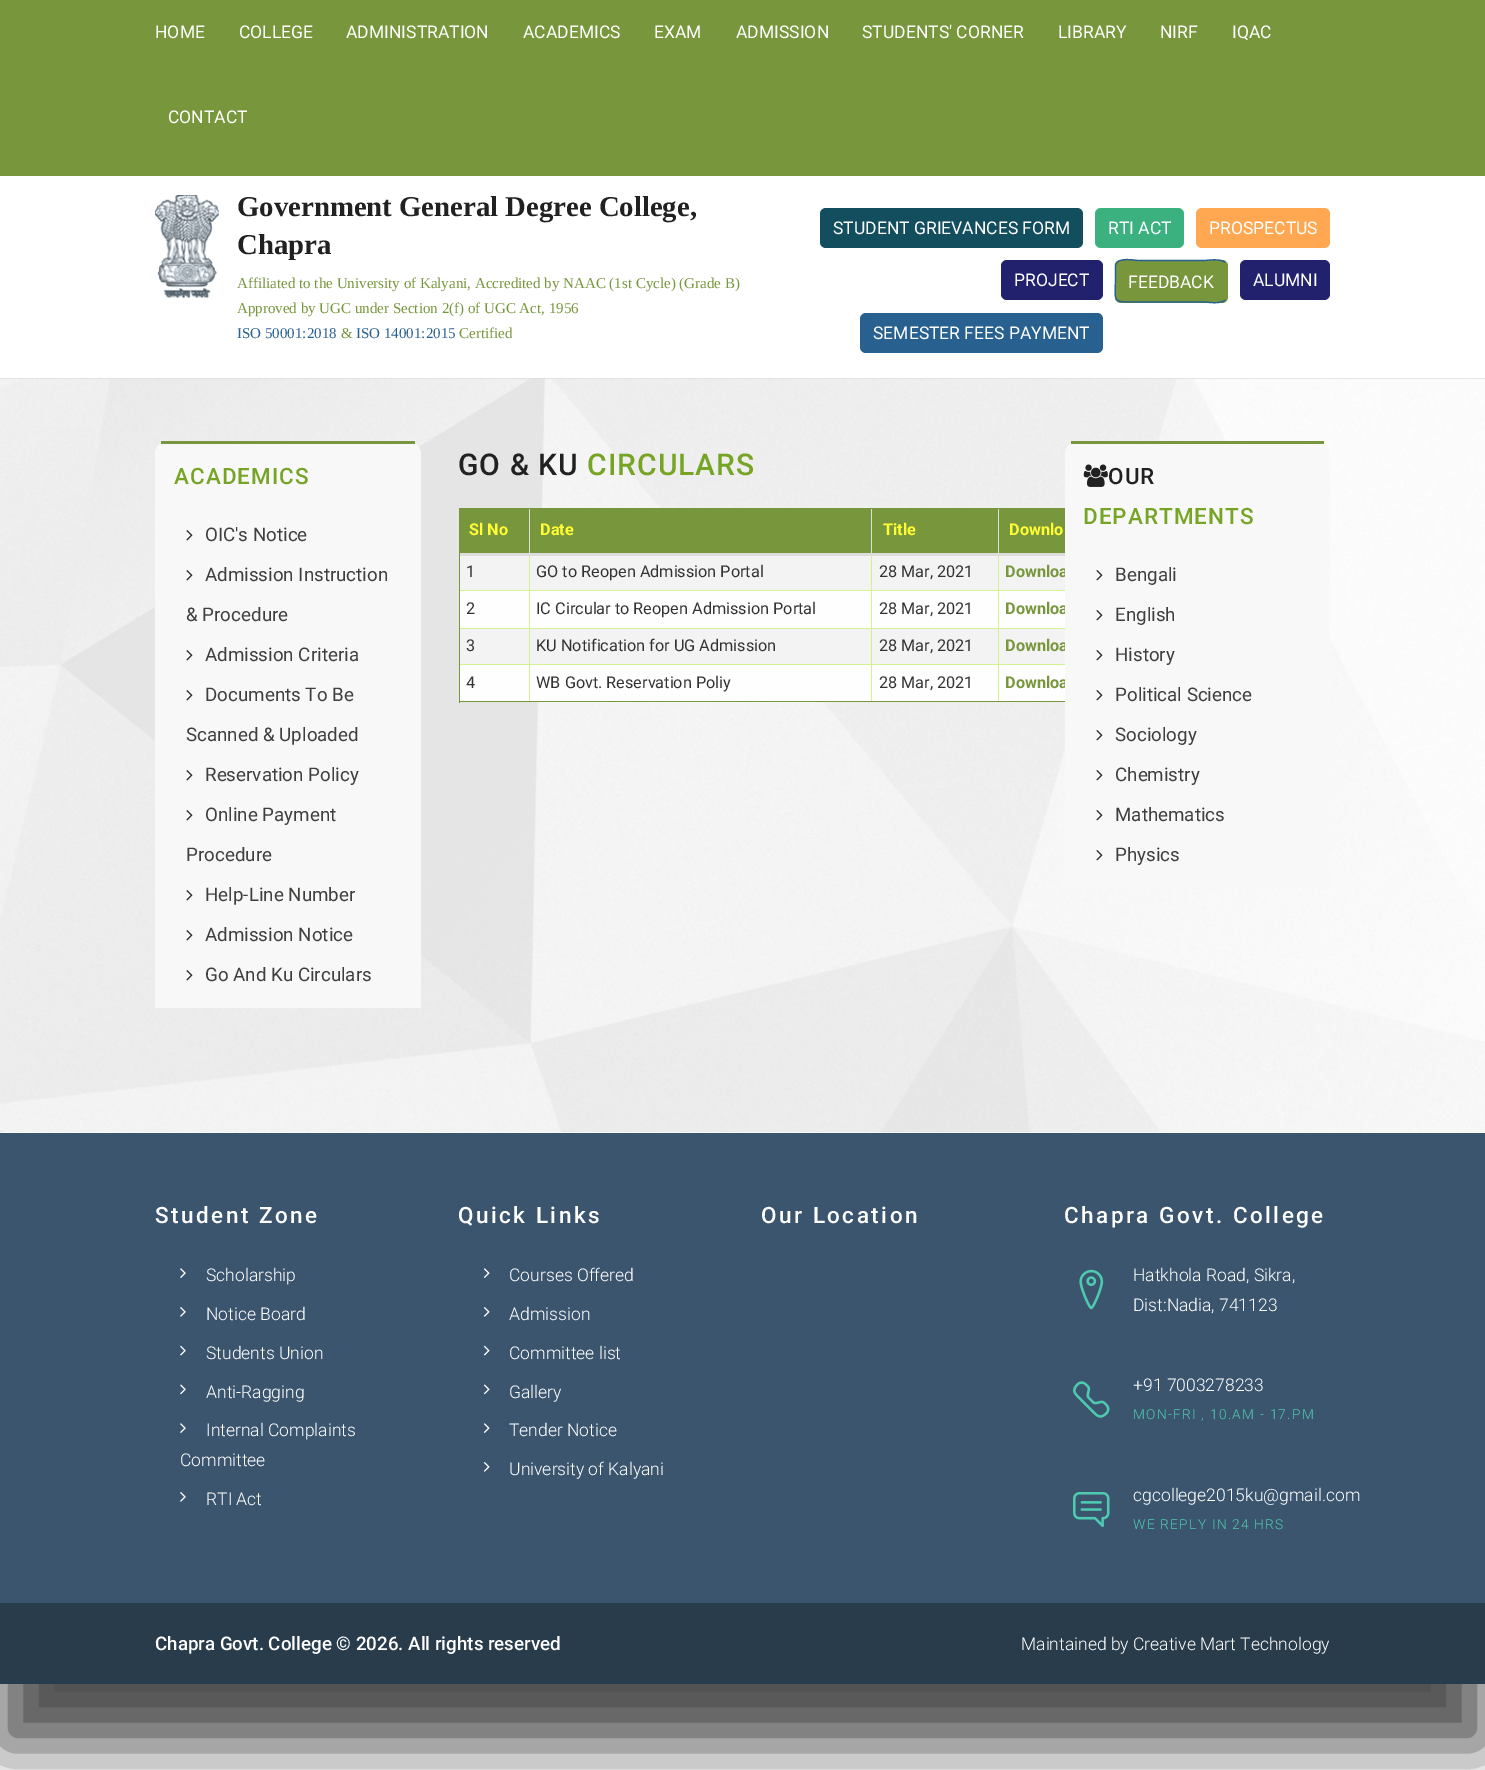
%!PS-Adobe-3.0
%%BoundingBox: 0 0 1485 1770
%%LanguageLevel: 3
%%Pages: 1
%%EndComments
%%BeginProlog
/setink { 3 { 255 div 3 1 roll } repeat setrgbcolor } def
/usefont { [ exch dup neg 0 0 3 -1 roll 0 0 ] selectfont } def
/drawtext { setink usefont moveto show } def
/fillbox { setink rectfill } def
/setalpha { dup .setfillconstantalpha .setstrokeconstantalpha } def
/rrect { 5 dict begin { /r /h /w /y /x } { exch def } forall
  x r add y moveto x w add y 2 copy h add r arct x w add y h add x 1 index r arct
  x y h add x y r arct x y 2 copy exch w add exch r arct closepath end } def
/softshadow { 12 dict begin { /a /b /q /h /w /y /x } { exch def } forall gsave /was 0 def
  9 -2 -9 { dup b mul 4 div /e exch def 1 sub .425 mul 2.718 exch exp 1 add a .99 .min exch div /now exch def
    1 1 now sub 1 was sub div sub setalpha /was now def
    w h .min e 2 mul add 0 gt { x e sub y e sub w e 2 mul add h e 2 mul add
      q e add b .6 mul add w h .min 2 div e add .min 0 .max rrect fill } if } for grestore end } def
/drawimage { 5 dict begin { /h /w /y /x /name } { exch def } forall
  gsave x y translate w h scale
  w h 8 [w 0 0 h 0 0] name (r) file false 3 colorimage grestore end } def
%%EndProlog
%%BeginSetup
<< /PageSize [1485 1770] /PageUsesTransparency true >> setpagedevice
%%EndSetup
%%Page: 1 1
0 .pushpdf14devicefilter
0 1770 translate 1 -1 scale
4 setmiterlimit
0 0 1485 1770 255 255 255 fillbox
0 0 0 setink
0 63 1485 1683 0 31 0.7 softshadow
0 176 1485 957 255 255 255 fillbox
0 378 1485 1 221 221 221 fillbox
0 0 1485 176 120 150 60 fillbox
(HOME) 155 38 /Roboto-Regular 17.5 255 255 255 drawtext
(COLLEGE) 239 38 /Roboto-Regular 17.5 255 255 255 drawtext
(ADMINISTRATION) 346 38 /Roboto-Regular 17.5 255 255 255 drawtext
(ACADEMICS) 523 38 /Roboto-Regular 17.5 255 255 255 drawtext
(EXAM) 654 38 /Roboto-Regular 17.5 255 255 255 drawtext
(ADMISSION) 736 38 /Roboto-Regular 17.5 255 255 255 drawtext
(STUDENTS' CORNER) 862 38 /Roboto-Regular 17.5 255 255 255 drawtext
(LIBRARY) 1058 38 /Roboto-Regular 17.5 255 255 255 drawtext
(NIRF) 1160 38 /Roboto-Regular 17.5 255 255 255 drawtext
(IQAC) 1232 38 /Roboto-Regular 17.5 255 255 255 drawtext
(CONTACT) 168 123 /Roboto-Regular 17.5 255 255 255 drawtext
(assets/img1.rgb) 155 195 64 103 drawimage
(Government General Degree College,) 237 216 /LiberationSerif-Bold 28.75 33 33 33 drawtext
(Chapra) 237 254 /LiberationSerif-Bold 28.75 33 33 33 drawtext
(Affiliated to the University of Kalyani, Accredited by NAAC \(1st Cycle\) \(Grade B\)) 237 288 /LiberationSerif-Regular 15 120 150 60 drawtext
(Approved by UGC under Section 2\(f\) of UGC Act, 1956) 237 313 /LiberationSerif-Regular 15 120 150 60 drawtext
(ISO 50001:2018) 237 338 /LiberationSerif-Regular 15 40 96 144 drawtext
(&) 341 338 /LiberationSerif-Regular 15 120 150 60 drawtext
(ISO 14001:2015) 356 338 /LiberationSerif-Regular 15 40 96 144 drawtext
(Certified) 459 338 /LiberationSerif-Regular 15 120 150 60 drawtext
19 78 94 setink
820 208 263 40 6 rrect fill
(STUDENT GRIEVANCES FORM) 833 234 /Roboto-Regular 17.5 255 255 255 drawtext
60 177 128 setink
1095 208 89 40 6 rrect fill
(RTI ACT) 1108 234 /Roboto-Regular 17.5 255 255 255 drawtext
255 168 81 setink
1196 208 134 40 6 rrect fill
(PROSPECTUS) 1209 234 /Roboto-Regular 17.5 255 255 255 drawtext
33 33 109 setink
1001 260 102 40 6 rrect fill
(PROJECT) 1014 286 /Roboto-Regular 17.5 255 255 255 drawtext
120 150 60 setink
1115 260 113 43 6 rrect fill
1.2 setlinewidth
1225 262.5 moveto 1226.5 263.5 1227 265 1227 266 curveto 1227 296 lineto 1227 297.5 1226.5 299 1225 300 curveto stroke
40 96 144 setink
1225 300 moveto 1221 304.5 1206.5 302 1204.5 302 curveto 1138 302 lineto 1110.5 302 1115.5 304 1115.5 276 curveto 1115.5 265 lineto 1117.5 256.5 1136 260.5 1138 260.5 curveto 1204.5 260.5 lineto 1206.5 260.5 1221 258 1225 262.5 curveto stroke
(FEEDBACK) 1128 288 /Roboto-Regular 17.5 255 255 255 drawtext
33 33 109 setink
1240 260 90 40 6 rrect fill
(ALUMNI) 1253 286 /Roboto-Regular 17.5 255 255 255 drawtext
40 96 144 setink
860 313 243 40 6 rrect fill
(SEMESTER FEES PAYMENT) 873 339 /Roboto-Regular 17.5 255 255 255 drawtext
(assets/img2.rgb) 0 378 1485 755 drawimage
248 248 248 setink
168 441 moveto 408 441 lineto 415 441 421 447 421 454 curveto 421 1008 lineto 155 1008 lineto 155 454 lineto 155 447 161 441 168 441 curveto closepath fill
161 441 254 3 120 150 60 fillbox
/Roboto-Medium 22.5 usefont
118 164 36 setink
174 484 moveto 1 0 (ACADEMICS) ashow
(assets/img3.rgb) 186 530 7 11 drawimage
(OIC's Notice) 205 541 /Roboto-Regular 18.75 64 63 61 drawtext
(assets/img3.rgb) 186 570 7 11 drawimage
(Admission Instruction) 205 581 /Roboto-Regular 18.75 64 63 61 drawtext
(& Procedure) 186 621 /Roboto-Regular 18.75 64 63 61 drawtext
(assets/img3.rgb) 186 650 7 11 drawimage
(Admission Criteria) 205 661 /Roboto-Regular 18.75 64 63 61 drawtext
(assets/img3.rgb) 186 690 7 11 drawimage
(Documents To Be) 205 701 /Roboto-Regular 18.75 64 63 61 drawtext
(Scanned & Uploaded) 186 741 /Roboto-Regular 18.75 64 63 61 drawtext
(assets/img3.rgb) 186 770 7 11 drawimage
(Reservation Policy) 205 781 /Roboto-Regular 18.75 64 63 61 drawtext
(assets/img3.rgb) 186 810 7 11 drawimage
(Online Payment) 205 821 /Roboto-Regular 18.75 64 63 61 drawtext
(Procedure) 186 861 /Roboto-Regular 18.75 64 63 61 drawtext
(assets/img3.rgb) 186 890 7 11 drawimage
(Help-Line Number) 205 901 /Roboto-Regular 18.75 64 63 61 drawtext
(assets/img3.rgb) 186 930 7 11 drawimage
(Admission Notice) 205 941 /Roboto-Regular 18.75 64 63 61 drawtext
(assets/img3.rgb) 186 970 7 11 drawimage
(Go And Ku Circulars) 205 981 /Roboto-Regular 18.75 64 63 61 drawtext
/Roboto-Medium 30 usefont
33 33 33 setink
458 475 moveto 1 0 (GO & KU) ashow
118 164 36 setink
587 475 moveto 1 0 (CIRCULARS) ashow
459 508 606 1 120 150 60 fillbox
459 701 606 1 120 150 60 fillbox
459 508 1 195 120 150 60 fillbox
460 509 69 44 120 150 60 fillbox
(Sl No) 469 535 /Roboto-Bold 16.25 255 255 51 drawtext
530 509 468 44 120 150 60 fillbox
460 556 605 34 243 243 243 fillbox
998 590 67 1 211 243 146 fillbox
460 591 605 37 254 254 255 fillbox
998 628 67 1 211 243 146 fillbox
460 629 605 35 243 243 243 fillbox
998 664 67 1 211 243 146 fillbox
460 665 605 36 254 254 255 fillbox
998 664 1 37 211 243 146 fillbox
871 664 128 1 211 243 146 fillbox
998 628 1 37 211 243 146 fillbox
871 628 128 1 211 243 146 fillbox
998 590 1 39 211 243 146 fillbox
871 590 128 1 211 243 146 fillbox
871 664 1 37 211 243 146 fillbox
529 664 344 1 211 243 146 fillbox
871 628 1 37 211 243 146 fillbox
529 628 344 1 211 243 146 fillbox
871 590 1 39 211 243 146 fillbox
529 590 344 1 211 243 146 fillbox
529 664 1 37 211 243 146 fillbox
460 664 70 1 211 243 146 fillbox
529 628 1 37 211 243 146 fillbox
460 628 70 1 211 243 146 fillbox
529 590 1 39 211 243 146 fillbox
460 590 70 1 211 243 146 fillbox
529 553 1 38 211 243 146 fillbox
529 509 1 45 221 221 221 fillbox
(Date) 540 535 /Roboto-Bold 16.25 255 255 51 drawtext
871 553 1 38 211 243 146 fillbox
871 509 1 45 221 221 221 fillbox
(Title) 883 535 /Roboto-Bold 16.25 255 255 51 drawtext
999 509 66 44 120 150 60 fillbox
998 553 1 38 211 243 146 fillbox
998 509 1 45 221 221 221 fillbox
460 553 605 3 221 221 221 fillbox
(Downlo) 1009 535 /Roboto-Bold 16.25 255 255 51 drawtext
(1) 466 577 /Roboto-Regular 16.25 51 51 51 drawtext
(GO to Reopen Admission Portal) 536 577 /Roboto-Regular 16.25 51 51 51 drawtext
(28 Mar, 2021) 879 577 /Roboto-Regular 16.25 51 51 51 drawtext
(Downloa) 1005 577 /Roboto-Bold 16.25 120 150 60 drawtext
(2) 466 614 /Roboto-Regular 16.25 51 51 51 drawtext
(IC Circular to Reopen Admission Portal) 536 614 /Roboto-Regular 16.25 51 51 51 drawtext
(28 Mar, 2021) 879 614 /Roboto-Regular 16.25 51 51 51 drawtext
(Downloa) 1005 614 /Roboto-Bold 16.25 120 150 60 drawtext
(3) 466 651 /Roboto-Regular 16.25 51 51 51 drawtext
(KU Notification for UG Admission) 536 651 /Roboto-Regular 16.25 51 51 51 drawtext
(28 Mar, 2021) 879 651 /Roboto-Regular 16.25 51 51 51 drawtext
(Downloa) 1005 651 /Roboto-Bold 16.25 120 150 60 drawtext
(4) 466 688 /Roboto-Regular 16.25 51 51 51 drawtext
(WB Govt. Reservation Poliy) 536 688 /Roboto-Regular 16.25 51 51 51 drawtext
(28 Mar, 2021) 879 688 /Roboto-Regular 16.25 51 51 51 drawtext
(Downloa) 1005 688 /Roboto-Bold 16.25 120 150 60 drawtext
248 248 248 setink
1078 441 moveto 1317 441 lineto 1324 441 1330 447 1330 454 curveto 1330 888 lineto 1065 888 lineto 1065 454 lineto 1065 447 1071 441 1078 441 curveto closepath fill
1071 441 253 3 120 150 60 fillbox
(assets/img4.rgb) 1083 464 25 23 drawimage
/Roboto-Medium 22.5 usefont
33 33 33 setink
1108 484 moveto 1 0 (OUR) ashow
118 164 36 setink
1083 524 moveto 1 0 (DEPARTMENTS) ashow
(assets/img3.rgb) 1096 570 7 11 drawimage
(Bengali) 1115 581 /Roboto-Regular 18.75 64 63 61 drawtext
(assets/img3.rgb) 1096 610 7 11 drawimage
(English) 1115 621 /Roboto-Regular 18.75 64 63 61 drawtext
(assets/img3.rgb) 1096 650 7 11 drawimage
(History) 1115 661 /Roboto-Regular 18.75 64 63 61 drawtext
(assets/img3.rgb) 1096 690 7 11 drawimage
(Political Science) 1115 701 /Roboto-Regular 18.75 64 63 61 drawtext
(assets/img3.rgb) 1096 730 7 11 drawimage
(Sociology) 1115 741 /Roboto-Regular 18.75 64 63 61 drawtext
(assets/img3.rgb) 1096 770 7 11 drawimage
(Chemistry) 1115 781 /Roboto-Regular 18.75 64 63 61 drawtext
(assets/img3.rgb) 1096 810 7 11 drawimage
(Mathematics) 1115 821 /Roboto-Regular 18.75 64 63 61 drawtext
(assets/img3.rgb) 1096 850 7 11 drawimage
(Physics) 1115 861 /Roboto-Regular 18.75 64 63 61 drawtext
0 1133 1485 470 60 85 110 fillbox
/Roboto-Medium 22.5 usefont
255 255 255 setink
155 1223 moveto 2.5 0 (Student Zone) ashow
(assets/img5.rgb) 180 1268 6 10 drawimage
(Scholarship) 206 1281 /Roboto-Light 17.5 255 255 255 drawtext
(assets/img6.rgb) 180 1307 6 10 drawimage
(Notice Board) 206 1320 /Roboto-Light 17.5 255 255 255 drawtext
(assets/img7.rgb) 180 1345 6 11 drawimage
(Students Union) 206 1359 /Roboto-Light 17.5 255 255 255 drawtext
(assets/img8.rgb) 180 1384 6 11 drawimage
(Anti-Ragging) 206 1398 /Roboto-Light 17.5 255 255 255 drawtext
(assets/img5.rgb) 180 1423 6 10 drawimage
(Internal Complaints) 206 1436 /Roboto-Light 17.5 255 255 255 drawtext
(Committee) 180 1466 /Roboto-Light 17.5 255 255 255 drawtext
(assets/img6.rgb) 180 1492 6 10 drawimage
(RTI Act) 206 1505 /Roboto-Light 17.5 255 255 255 drawtext
/Roboto-Medium 22.5 usefont
458 1223 moveto 2.5 0 (Quick Links) ashow
(assets/img9.rgb) 483 1268 7 10 drawimage
(Courses Offered) 509 1281 /Roboto-Light 17.5 255 255 255 drawtext
(assets/img10.rgb) 483 1307 7 10 drawimage
(Admission) 509 1320 /Roboto-Light 17.5 255 255 255 drawtext
(assets/img11.rgb) 483 1345 7 11 drawimage
(Committee list) 509 1359 /Roboto-Light 17.5 255 255 255 drawtext
(assets/img12.rgb) 483 1384 7 11 drawimage
(Gallery) 509 1398 /Roboto-Light 17.5 255 255 255 drawtext
(assets/img9.rgb) 483 1423 7 10 drawimage
(Tender Notice) 509 1436 /Roboto-Light 17.5 255 255 255 drawtext
(assets/img10.rgb) 483 1462 7 10 drawimage
(University of Kalyani) 509 1475 /Roboto-Light 17.5 255 255 255 drawtext
/Roboto-Medium 22.5 usefont
761 1223 moveto 2.5 0 (Our Location) ashow
1064 1223 moveto 2.5 0 (Chapra Govt. College) ashow
(assets/img13.rgb) 1079 1269 25 41 drawimage
(Hatkhola Road, Sikra,) 1133 1281 /Roboto-Light 17.5 255 255 255 drawtext
(Dist:Nadia, 741123) 1133 1311 /Roboto-Light 17.5 255 255 255 drawtext
(assets/img14.rgb) 1073 1381 37 37 drawimage
(+91 7003278233) 1133 1391 /Roboto-Light 17.5 255 255 255 drawtext
/Roboto-Light 13.75 usefont
77 202 176 setink
1133 1419 moveto 1.25 0 (MON-FRI , 10.AM - 17.PM) ashow
(assets/img15.rgb) 1073 1492 37 35 drawimage
(cgcollege2015ku@gmail.com) 1133 1501 /Roboto-Light 17.5 255 255 255 drawtext
/Roboto-Light 13.75 usefont
77 202 176 setink
1133 1529 moveto 1.25 0 (WE REPLY IN 24 HRS) ashow
0 1603 1485 81 40 60 75 fillbox
(Chapra Govt. College © 2026. All rights reserved) 155 1650 /Roboto-Medium 18.75 255 255 255 drawtext
(Maintained by Creative Mart Technology) 1021 1650 /Roboto-Light 17.5 255 255 255 drawtext
.poppdf14devicefilter showpage
%%EOF
